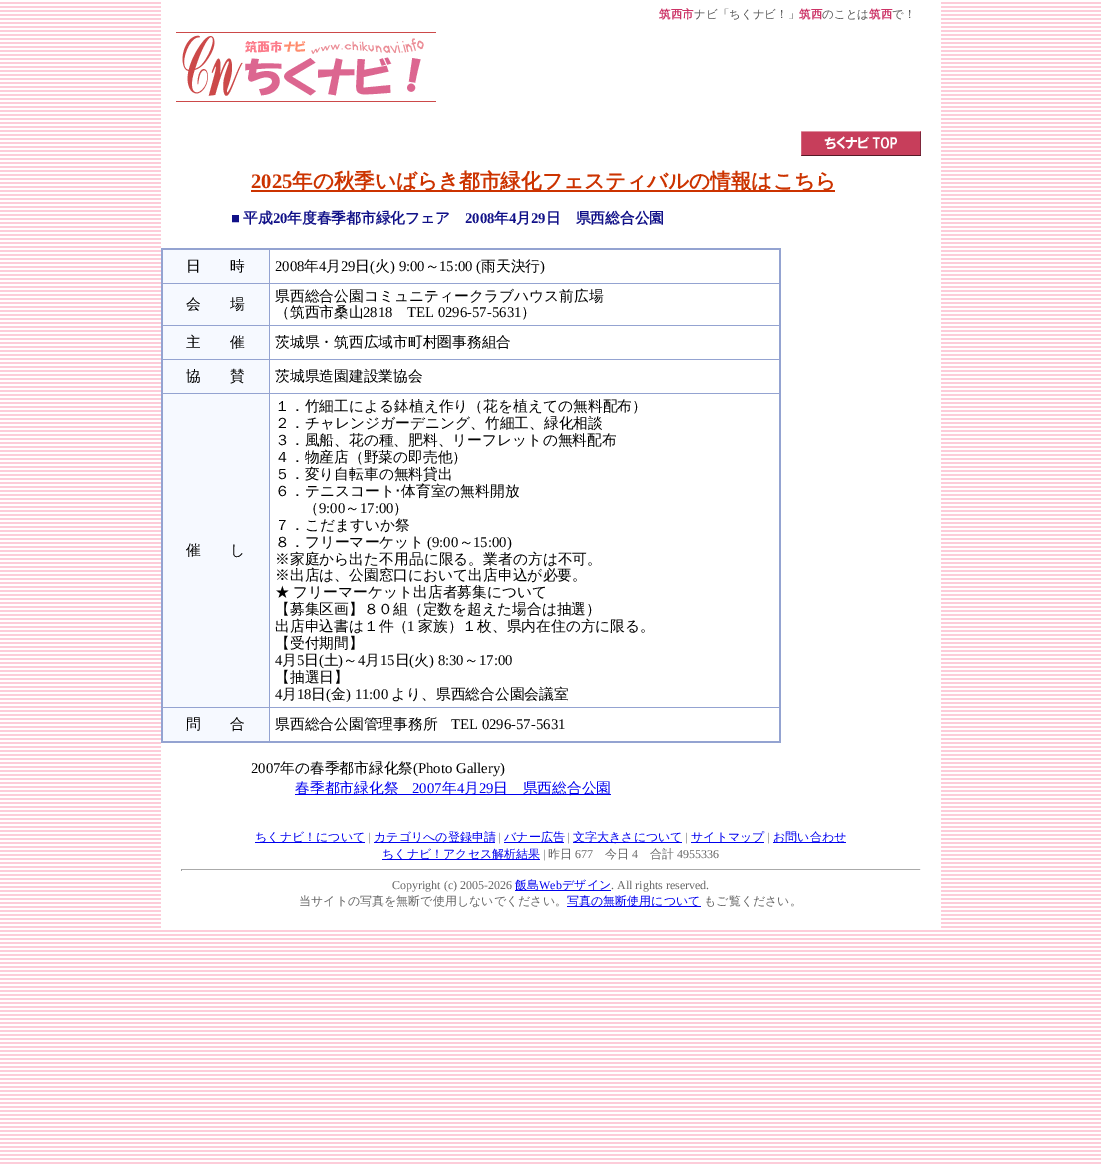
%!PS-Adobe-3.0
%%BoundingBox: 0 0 1101 1164
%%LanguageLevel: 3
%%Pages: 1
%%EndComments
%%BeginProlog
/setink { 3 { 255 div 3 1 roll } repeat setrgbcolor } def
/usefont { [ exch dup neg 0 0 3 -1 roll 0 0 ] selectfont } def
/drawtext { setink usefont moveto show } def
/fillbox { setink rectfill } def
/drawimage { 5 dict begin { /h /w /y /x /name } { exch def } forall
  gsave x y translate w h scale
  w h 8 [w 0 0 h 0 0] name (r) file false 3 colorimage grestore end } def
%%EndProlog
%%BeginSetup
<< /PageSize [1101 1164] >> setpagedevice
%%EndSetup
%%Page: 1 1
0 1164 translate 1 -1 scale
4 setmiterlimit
0 0 1101 1164 255 255 255 fillbox
(assets/img1.rgb) 0 2 1101 1162 drawimage
161 2 780 926 255 255 255 fillbox
(筑西市) 659 18 /WenQuanYiZenHei-Bold 11.5 204 51 102 drawtext
(ナビ「ちくナビ！」) 694 18 /WenQuanYiZenHei-Medium 11.5 85 85 85 drawtext
(筑西) 799 18 /WenQuanYiZenHei-Bold 11.5 204 51 102 drawtext
(のことは) 822 18 /WenQuanYiZenHei-Medium 11.5 85 85 85 drawtext
(筑西) 869 18 /WenQuanYiZenHei-Bold 11.5 204 51 102 drawtext
(で！) 892 18 /WenQuanYiZenHei-Medium 11.5 85 85 85 drawtext
(assets/img2.rgb) 176 32 260 70 drawimage
(assets/img3.rgb) 801 131 120 25 drawimage
(2025) 251 188 /LiberationSerif-Bold 20.6 204 51 0 drawtext
251 190 584 2 204 51 0 fillbox
(年の秋季いばらき都市緑化フェスティバルの情報はこちら) 292 188 /WenQuanYiZenHei-Bold 20.6 204 51 0 drawtext
(■) 231 223 /LiberationSerif-Bold 14.75 17 17 136 drawtext
(平成) 243 223 /WenQuanYiZenHei-Bold 14.75 17 17 136 drawtext
(20) 273 223 /LiberationSerif-Bold 14.75 17 17 136 drawtext
(年度春季都市緑化フェア) 287 223 /WenQuanYiZenHei-Bold 14.75 17 17 136 drawtext
(2008) 465 223 /LiberationSerif-Bold 14.75 17 17 136 drawtext
(年) 494 223 /WenQuanYiZenHei-Bold 14.75 17 17 136 drawtext
(4) 509 223 /LiberationSerif-Bold 14.75 17 17 136 drawtext
(月) 516 223 /WenQuanYiZenHei-Bold 14.75 17 17 136 drawtext
(29) 531 223 /LiberationSerif-Bold 14.75 17 17 136 drawtext
(日　県西総合公園) 546 223 /WenQuanYiZenHei-Bold 14.75 17 17 136 drawtext
269 283 511 1 148 163 209 fillbox
269 325 511 1 148 163 209 fillbox
269 359 511 1 148 163 209 fillbox
269 393 511 1 148 163 209 fillbox
269 707 511 1 148 163 209 fillbox
269 707 1 35 148 163 209 fillbox
161 707 109 1 148 163 209 fillbox
269 393 1 315 148 163 209 fillbox
161 393 109 1 148 163 209 fillbox
269 359 1 35 148 163 209 fillbox
161 359 109 1 148 163 209 fillbox
269 325 1 35 148 163 209 fillbox
161 325 109 1 148 163 209 fillbox
269 283 1 43 148 163 209 fillbox
161 283 109 1 148 163 209 fillbox
269 248 1 36 148 163 209 fillbox
161 248 620 2 148 163 209 fillbox
779 248 2 495 148 163 209 fillbox
161 741 620 2 148 163 209 fillbox
161 248 2 495 148 163 209 fillbox
163 250 106 33 246 249 255 fillbox
(日　　時) 186 271 /WenQuanYiZenHei-Medium 14.75 0 0 0 drawtext
(2008) 275 271 /LiberationSerif-Regular 14.75 0 0 0 drawtext
(年) 304 271 /WenQuanYiZenHei-Medium 14.75 0 0 0 drawtext
(4) 319 271 /LiberationSerif-Regular 14.75 0 0 0 drawtext
(月) 326 271 /WenQuanYiZenHei-Medium 14.75 0 0 0 drawtext
(29) 341 271 /LiberationSerif-Regular 14.75 0 0 0 drawtext
(日) 355 271 /WenQuanYiZenHei-Medium 14.75 0 0 0 drawtext
(\() 370 271 /LiberationSerif-Regular 14.75 0 0 0 drawtext
(火) 375 271 /WenQuanYiZenHei-Medium 14.75 0 0 0 drawtext
(\) 9:00) 390 271 /LiberationSerif-Regular 14.75 0 0 0 drawtext
(～) 425 271 /WenQuanYiZenHei-Medium 14.75 0 0 0 drawtext
(15:00 \() 439 271 /LiberationSerif-Regular 14.75 0 0 0 drawtext
(雨天決行) 481 271 /WenQuanYiZenHei-Medium 14.75 0 0 0 drawtext
(\)) 540 271 /LiberationSerif-Regular 14.75 0 0 0 drawtext
163 284 106 41 246 249 255 fillbox
(会　　場) 186 309 /WenQuanYiZenHei-Medium 14.75 0 0 0 drawtext
(県西総合公園コミュニティークラブハウス前広場) 275 301 /WenQuanYiZenHei-Medium 14.75 0 0 0 drawtext
(（筑西市桑山) 275 317 /WenQuanYiZenHei-Medium 14.75 0 0 0 drawtext
(2818) 363 317 /LiberationSerif-Regular 14.75 0 0 0 drawtext
(TEL 0296-57-5631) 407 317 /LiberationSerif-Regular 14.75 0 0 0 drawtext
(）) 521 317 /WenQuanYiZenHei-Medium 14.75 0 0 0 drawtext
163 326 106 33 246 249 255 fillbox
(主　　催) 186 347 /WenQuanYiZenHei-Medium 14.75 0 0 0 drawtext
(茨城県・筑西広域市町村圏事務組合) 275 347 /WenQuanYiZenHei-Medium 14.75 0 0 0 drawtext
163 360 106 33 246 249 255 fillbox
(協　　賛) 186 381 /WenQuanYiZenHei-Medium 14.75 0 0 0 drawtext
(茨城県造園建設業協会) 275 381 /WenQuanYiZenHei-Medium 14.75 0 0 0 drawtext
163 394 106 313 246 249 255 fillbox
(催　　し) 186 555 /WenQuanYiZenHei-Medium 14.75 0 0 0 drawtext
(１．竹細工による鉢植え作り（花を植えての無料配布）) 275 411 /WenQuanYiZenHei-Medium 14.75 0 0 0 drawtext
(２．チャレンジガーデニング、竹細工、緑化相談) 275 428 /WenQuanYiZenHei-Medium 14.75 0 0 0 drawtext
(３．風船、花の種、肥料、リーフレットの無料配布) 275 445 /WenQuanYiZenHei-Medium 14.75 0 0 0 drawtext
(４．物産店（野菜の即売他）) 275 462 /WenQuanYiZenHei-Medium 14.75 0 0 0 drawtext
(５．変り自転車の無料貸出) 275 479 /WenQuanYiZenHei-Medium 14.75 0 0 0 drawtext
(６．テニスコート) 275 496 /WenQuanYiZenHei-Medium 14.75 0 0 0 drawtext
(･) 394 496 /IPAPGothic-Regular 14.75 0 0 0 drawtext
(体育室の無料開放) 401 496 /WenQuanYiZenHei-Medium 14.75 0 0 0 drawtext
(（) 304 513 /WenQuanYiZenHei-Medium 14.75 0 0 0 drawtext
(9:00) 319 513 /LiberationSerif-Regular 14.75 0 0 0 drawtext
(～) 345 513 /WenQuanYiZenHei-Medium 14.75 0 0 0 drawtext
(17:00) 360 513 /LiberationSerif-Regular 14.75 0 0 0 drawtext
(）) 393 513 /WenQuanYiZenHei-Medium 14.75 0 0 0 drawtext
(７．こだますいか祭) 275 530 /WenQuanYiZenHei-Medium 14.75 0 0 0 drawtext
(８．フリーマーケット) 275 547 /WenQuanYiZenHei-Medium 14.75 0 0 0 drawtext
(\(9:00) 427 547 /LiberationSerif-Regular 14.75 0 0 0 drawtext
(～) 459 547 /WenQuanYiZenHei-Medium 14.75 0 0 0 drawtext
(15:00\)) 473 547 /LiberationSerif-Regular 14.75 0 0 0 drawtext
(※家庭から出た不用品に限る。業者の方は不可。) 275 564 /WenQuanYiZenHei-Medium 14.75 0 0 0 drawtext
(※出店は、公園窓口において出店申込が必要。) 275 580 /WenQuanYiZenHei-Medium 14.75 0 0 0 drawtext
275 597 moveto -1 0 32 (★ フリーマーケット出店者募集について) widthshow
(【募集区画】８０組（定数を超えた場合は抽選）) 275 614 /WenQuanYiZenHei-Medium 14.75 0 0 0 drawtext
(出店申込書は１件（) 275 631 /WenQuanYiZenHei-Medium 14.75 0 0 0 drawtext
(1) 407 631 /LiberationSerif-Regular 14.75 0 0 0 drawtext
(家族）１枚、県内在住の方に限る。) 418 631 /WenQuanYiZenHei-Medium 14.75 0 0 0 drawtext
(【受付期間】) 275 648 /WenQuanYiZenHei-Medium 14.75 0 0 0 drawtext
(4) 275 665 /LiberationSerif-Regular 14.75 0 0 0 drawtext
(月) 282 665 /WenQuanYiZenHei-Medium 14.75 0 0 0 drawtext
(5) 297 665 /LiberationSerif-Regular 14.75 0 0 0 drawtext
(日) 304 665 /WenQuanYiZenHei-Medium 14.75 0 0 0 drawtext
(\() 319 665 /LiberationSerif-Regular 14.75 0 0 0 drawtext
(土) 324 665 /WenQuanYiZenHei-Medium 14.75 0 0 0 drawtext
(\)) 338 665 /LiberationSerif-Regular 14.75 0 0 0 drawtext
(～) 343 665 /WenQuanYiZenHei-Medium 14.75 0 0 0 drawtext
(4) 358 665 /LiberationSerif-Regular 14.75 0 0 0 drawtext
(月) 365 665 /WenQuanYiZenHei-Medium 14.75 0 0 0 drawtext
(15) 380 665 /LiberationSerif-Regular 14.75 0 0 0 drawtext
(日) 395 665 /WenQuanYiZenHei-Medium 14.75 0 0 0 drawtext
(\() 409 665 /LiberationSerif-Regular 14.75 0 0 0 drawtext
(火) 414 665 /WenQuanYiZenHei-Medium 14.75 0 0 0 drawtext
(\) 8:30) 429 665 /LiberationSerif-Regular 14.75 0 0 0 drawtext
(～) 464 665 /WenQuanYiZenHei-Medium 14.75 0 0 0 drawtext
(17:00) 479 665 /LiberationSerif-Regular 14.75 0 0 0 drawtext
(【抽選日】) 275 682 /WenQuanYiZenHei-Medium 14.75 0 0 0 drawtext
(4) 275 699 /LiberationSerif-Regular 14.75 0 0 0 drawtext
(月) 282 699 /WenQuanYiZenHei-Medium 14.75 0 0 0 drawtext
(18) 297 699 /LiberationSerif-Regular 14.75 0 0 0 drawtext
(日) 311 699 /WenQuanYiZenHei-Medium 14.75 0 0 0 drawtext
(\() 326 699 /LiberationSerif-Regular 14.75 0 0 0 drawtext
(金) 331 699 /WenQuanYiZenHei-Medium 14.75 0 0 0 drawtext
(\) 11:00) 346 699 /LiberationSerif-Regular 14.75 0 0 0 drawtext
(より、県西総合公園会議室) 391 699 /WenQuanYiZenHei-Medium 14.75 0 0 0 drawtext
163 708 106 33 246 249 255 fillbox
(問　　合) 186 729 /WenQuanYiZenHei-Medium 14.75 0 0 0 drawtext
(県西総合公園管理事務所) 275 729 /WenQuanYiZenHei-Medium 14.75 0 0 0 drawtext
(TEL 0296-57-5631) 451 729 /LiberationSerif-Regular 14.75 0 0 0 drawtext
(2007) 251 773 /LiberationSerif-Regular 14.75 0 0 0 drawtext
(年の春季都市緑化祭) 280 773 /WenQuanYiZenHei-Medium 14.75 0 0 0 drawtext
(\(Photo Gallery\)) 413 773 /LiberationSerif-Regular 14.75 0 0 0 drawtext
295 794 316 1 0 0 238 fillbox
(春季都市緑化祭) 295 793 /WenQuanYiZenHei-Medium 14.75 0 0 238 drawtext
(2007) 412 793 /LiberationSerif-Regular 14.75 0 0 238 drawtext
(年) 442 793 /WenQuanYiZenHei-Medium 14.75 0 0 238 drawtext
(4) 457 793 /LiberationSerif-Regular 14.75 0 0 238 drawtext
(月) 464 793 /WenQuanYiZenHei-Medium 14.75 0 0 238 drawtext
(29) 479 793 /LiberationSerif-Regular 14.75 0 0 238 drawtext
(日　県西総合公園) 493 793 /WenQuanYiZenHei-Medium 14.75 0 0 238 drawtext
255 842 110 1 0 0 238 fillbox
(ちくナビ！について) 255 841 /WenQuanYiZenHei-Medium 12 0 0 238 drawtext
(|) 368 841 /LiberationSerif-Regular 12 102 102 102 drawtext
374 842 121 1 0 0 238 fillbox
(カテゴリへの登録申請) 374 841 /WenQuanYiZenHei-Medium 12 0 0 238 drawtext
(|) 498 841 /LiberationSerif-Regular 12 102 102 102 drawtext
504 842 60 1 0 0 238 fillbox
(バナー広告) 504 841 /WenQuanYiZenHei-Medium 12 0 0 238 drawtext
(|) 567 841 /LiberationSerif-Regular 12 102 102 102 drawtext
573 842 109 1 0 0 238 fillbox
(文字大きさについて) 573 841 /WenQuanYiZenHei-Medium 12 0 0 238 drawtext
(|) 685 841 /LiberationSerif-Regular 12 102 102 102 drawtext
691 842 73 1 0 0 238 fillbox
(サイトマップ) 691 841 /WenQuanYiZenHei-Medium 12 0 0 238 drawtext
(|) 767 841 /LiberationSerif-Regular 12 102 102 102 drawtext
773 842 73 1 0 0 238 fillbox
(お問い合わせ) 773 841 /WenQuanYiZenHei-Medium 12 0 0 238 drawtext
382 859 158 1 0 0 238 fillbox
(ちくナビ！アクセス解析結果) 382 858 /WenQuanYiZenHei-Medium 12 0 0 238 drawtext
(|) 543 858 /LiberationSerif-Regular 12 102 102 102 drawtext
(昨日) 548 858 /WenQuanYiZenHei-Medium 12 102 102 102 drawtext
(677) 575 858 /LiberationSerif-Regular 12 102 102 102 drawtext
(今日) 605 858 /WenQuanYiZenHei-Medium 12 102 102 102 drawtext
(4) 632 858 /LiberationSerif-Regular 12 102 102 102 drawtext
(合計) 650 858 /WenQuanYiZenHei-Medium 12 102 102 102 drawtext
(4955336) 677 858 /LiberationSerif-Regular 12 102 102 102 drawtext
181 869 740 1 170 170 170 fillbox
920 869 1 2 238 238 238 fillbox
920 870 1 1 255 255 255 fillbox
181 869 1 2 159 159 159 fillbox
(Copyright \(c\) 2005-2026) 392 889 /LiberationSerif-Regular 12 102 102 102 drawtext
515 890 96 1 0 0 238 fillbox
(飯島) 515 889 /WenQuanYiZenHei-Medium 12 0 0 238 drawtext
(Web) 539 889 /LiberationSerif-Regular 12 0 0 238 drawtext
(デザイン) 562 889 /WenQuanYiZenHei-Medium 12 0 0 238 drawtext
(. All rights reserved.) 611 889 /LiberationSerif-Regular 12 102 102 102 drawtext
(当サイトの写真を無断で使用しないでください。) 299 905 /WenQuanYiZenHei-Medium 12 102 102 102 drawtext
567 906 134 1 0 0 238 fillbox
(写真の無断使用について) 567 905 /WenQuanYiZenHei-Medium 12 0 0 238 drawtext
(もご覧ください。) 704 905 /WenQuanYiZenHei-Medium 12 102 102 102 drawtext
showpage
%%EOF
